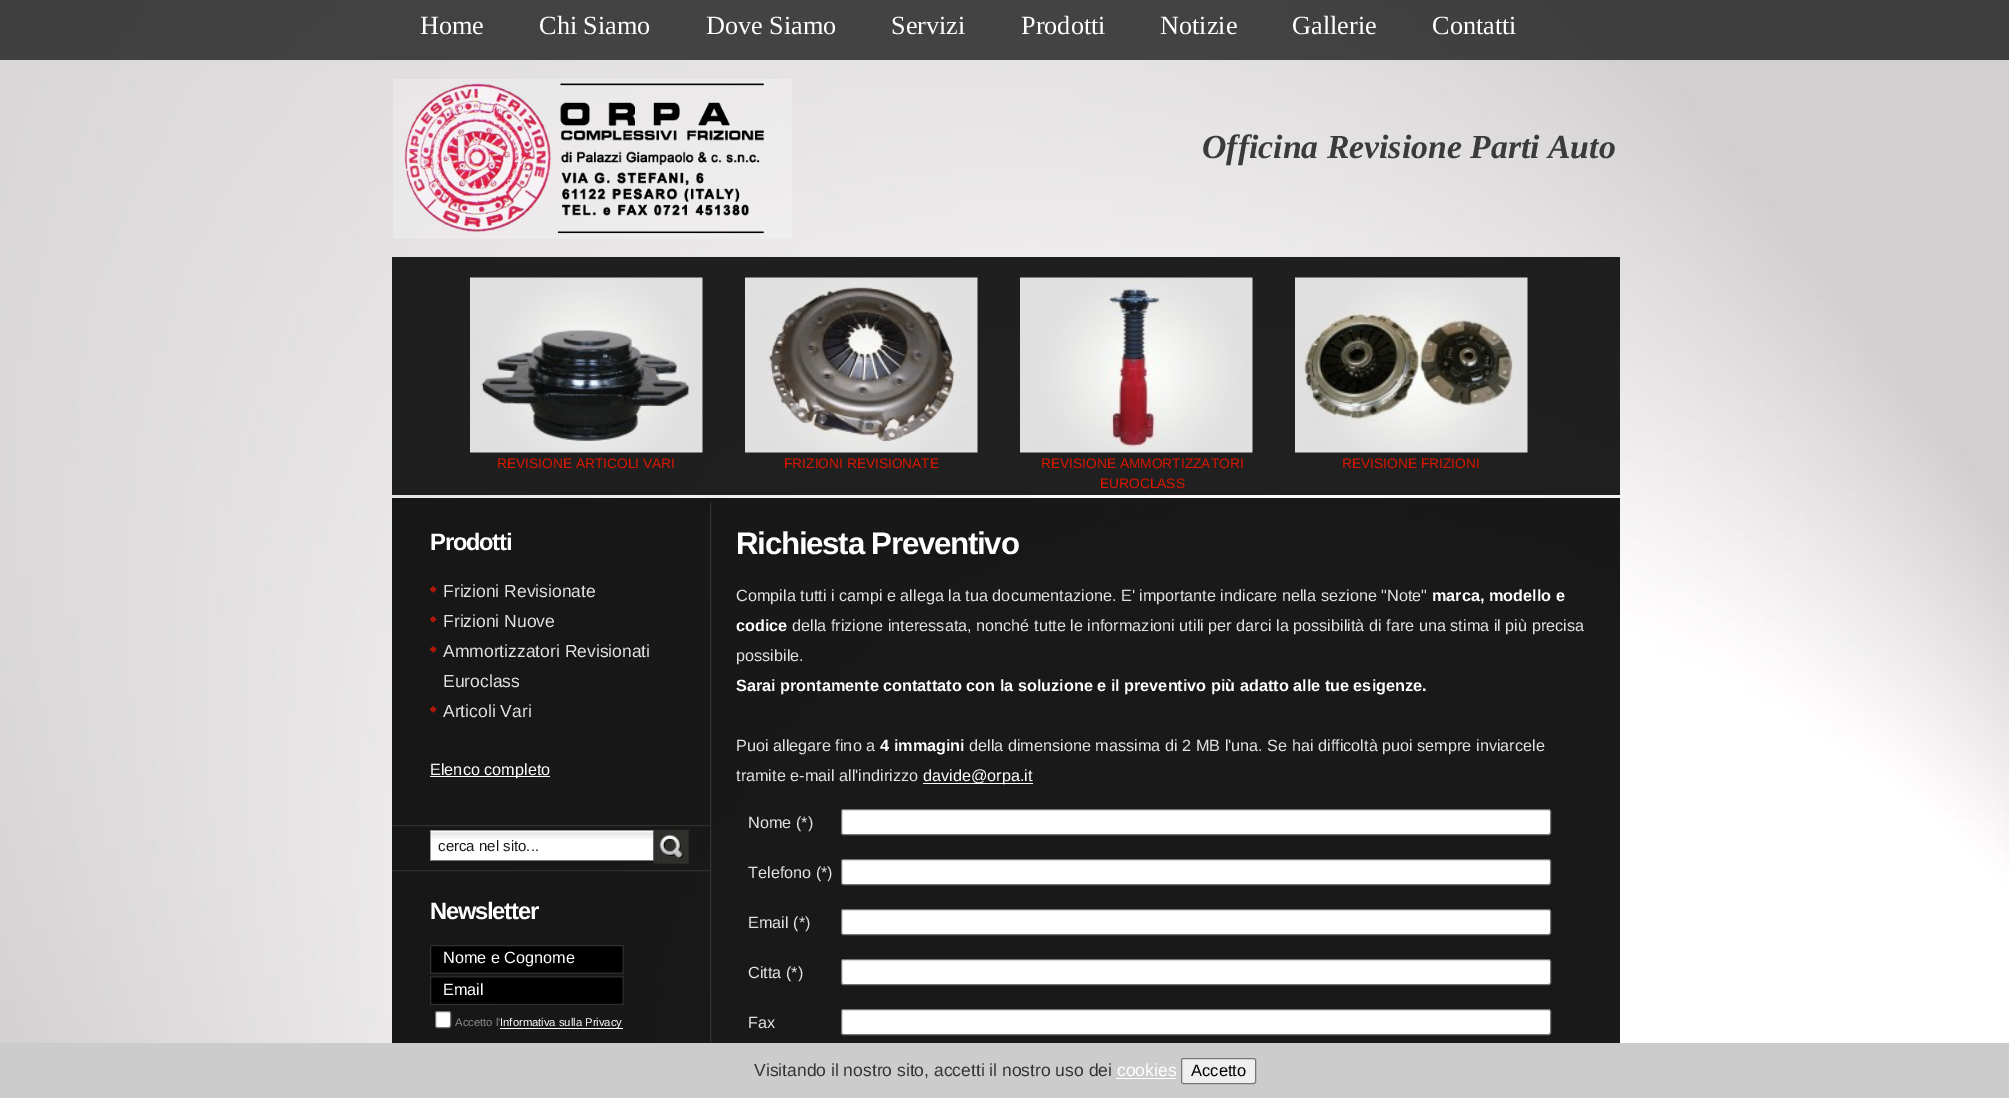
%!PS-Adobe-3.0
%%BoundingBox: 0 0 2009 1098
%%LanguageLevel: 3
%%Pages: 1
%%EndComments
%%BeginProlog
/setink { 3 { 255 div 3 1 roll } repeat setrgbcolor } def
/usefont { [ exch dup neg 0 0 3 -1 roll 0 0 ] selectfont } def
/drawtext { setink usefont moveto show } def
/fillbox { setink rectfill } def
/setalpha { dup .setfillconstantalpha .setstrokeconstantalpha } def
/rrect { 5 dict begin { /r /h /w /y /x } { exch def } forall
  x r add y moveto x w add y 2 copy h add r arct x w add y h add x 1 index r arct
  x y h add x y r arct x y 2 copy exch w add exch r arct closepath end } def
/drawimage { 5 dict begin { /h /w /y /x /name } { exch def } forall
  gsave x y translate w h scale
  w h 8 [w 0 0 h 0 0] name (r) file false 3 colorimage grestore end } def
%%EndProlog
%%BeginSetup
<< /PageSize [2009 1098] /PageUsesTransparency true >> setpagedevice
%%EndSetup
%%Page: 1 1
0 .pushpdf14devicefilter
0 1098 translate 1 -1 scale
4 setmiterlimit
0 0 2009 1098 255 255 255 fillbox
(assets/img1.rgb) 0 0 2009 1043 drawimage
0.7 setalpha
0 0 2009 60 0 0 0 fillbox
1 setalpha
(Home) 420 34 /LiberationSerif-Regular 26.25 255 255 255 drawtext
(Chi Siamo) 539 34 /LiberationSerif-Regular 26.25 255 255 255 drawtext
(Dove Siamo) 706 34 /LiberationSerif-Regular 26.25 255 255 255 drawtext
(Servizi) 891 34 /LiberationSerif-Regular 26.25 255 255 255 drawtext
(Prodotti) 1021 34 /LiberationSerif-Regular 26.25 255 255 255 drawtext
(Notizie) 1160 34 /LiberationSerif-Regular 26.25 255 255 255 drawtext
(Gallerie) 1292 34 /LiberationSerif-Regular 26.25 255 255 255 drawtext
(Contatti) 1432 34 /LiberationSerif-Regular 26.25 255 255 255 drawtext
(assets/img2.rgb) 393 79 399 160 drawimage
(Officina Revisione Parti Auto) 1202 158 /LiberationSerif-BoldItalic 33.75 59 59 59 drawtext
0.91 setalpha
392 257 1228 238 11 11 11 fillbox
1 setalpha
(assets/img3.rgb) 470 277 233 176 drawimage
(REVISIONE ARTICOLI VARI) 497 468 /LiberationSans-Regular 13.75 218 23 0 drawtext
(assets/img4.rgb) 745 277 233 176 drawimage
(FRIZIONI REVISIONATE) 784 468 /LiberationSans-Regular 13.75 218 23 0 drawtext
(assets/img5.rgb) 1020 277 233 176 drawimage
(REVISIONE AMMORTIZZATORI) 1041 468 /LiberationSans-Regular 13.75 218 23 0 drawtext
(EUROCLASS) 1100 488 /LiberationSans-Regular 13.75 218 23 0 drawtext
(assets/img6.rgb) 1295 277 233 176 drawimage
(REVISIONE FRIZIONI) 1342 468 /LiberationSans-Regular 13.75 218 23 0 drawtext
0.9 setalpha
392 498 1228 545 0 0 0 fillbox
1 setalpha
(assets/img7.rgb) 710 502 2 541 drawimage
/LiberationSans-Bold 23.75 usefont
255 255 255 setink
430 550 moveto -1.25 0 (Prodotti) ashow
(assets/img8.rgb) 430 586 7 7 drawimage
(Frizioni Revisionate) 443 597 /LiberationSans-Regular 17.5 226 226 226 drawtext
(assets/img9.rgb) 430 616 7 7 drawimage
(Frizioni Nuove) 443 627 /LiberationSans-Regular 17.5 226 226 226 drawtext
(assets/img10.rgb) 430 646 7 7 drawimage
(Ammortizzatori Revisionati) 443 657 /LiberationSans-Regular 17.5 226 226 226 drawtext
(Euroclass) 443 687 /LiberationSans-Regular 17.5 226 226 226 drawtext
(assets/img11.rgb) 430 706 7 7 drawimage
(Articoli Vari) 443 717 /LiberationSans-Regular 17.5 226 226 226 drawtext
430 776 120 1 255 255 255 fillbox
(Elenco completo) 430 775 /LiberationSans-Regular 16.25 255 255 255 drawtext
(assets/img12.rgb) 392 825 318 2 drawimage
431 831 222 29 255 255 255 fillbox
(assets/img13.rgb) 431 831 222 8 drawimage
430 830 224 1 153 153 153 fillbox
653 830 1 31 119 119 119 fillbox
430 860 224 1 119 119 119 fillbox
430 830 1 31 153 153 153 fillbox
(cerca nel sito...) 438 851 /LiberationSans-Regular 15 26 26 26 drawtext
654 826 35 1 26 26 26 fillbox
(assets/img14.rgb) 653 830 36 34 drawimage
(assets/img15.rgb) 392 870 318 2 drawimage
/LiberationSans-Bold 23.75 usefont
255 255 255 setink
430 919 moveto -1.25 0 (Newsletter) ashow
(assets/img16.rgb) 430 945 194 29 drawimage
(Nome e Cognome) 443 963 /LiberationSans-Regular 16.25 255 255 255 drawtext
(assets/img17.rgb) 430 976 194 29 drawimage
(Email) 443 995 /LiberationSans-Regular 16.25 255 255 255 drawtext
435.5 1011.5 15 16 2 rrect gsave fill grestore
118 118 118 setink
stroke
(Accetto l') 455 1026 /LiberationSans-Regular 11.25 139 139 139 drawtext
500 1028 123 1 255 255 255 fillbox
(Informativa sulla Privacy) 500 1026 /LiberationSans-Regular 11.25 255 255 255 drawtext
/LiberationSans-Bold 31.25 usefont
736 554 moveto -1.25 0 (Richiesta Preventivo) ashow
(Compila tutti i campi e allega la tua documentazione. E' importante indicare nella sezione "Note") 736 601 /LiberationSans-Regular 16.25 226 226 226 drawtext
(marca, modello e) 1432 601 /LiberationSans-Bold 16.25 255 255 255 drawtext
(codice) 736 631 /LiberationSans-Bold 16.25 255 255 255 drawtext
(della frizione interessata, nonché tutte le informazioni utili per darci la possibilità di fare una stima il più precisa) 792 631 /LiberationSans-Regular 16.25 226 226 226 drawtext
(possibile.) 736 661 /LiberationSans-Regular 16.25 226 226 226 drawtext
(Sarai prontamente contattato con la soluzione e il preventivo più adatto alle tue esigenze.) 736 691 /LiberationSans-Bold 16.25 255 255 255 drawtext
(Puoi allegare fino a) 736 751 /LiberationSans-Regular 16.25 226 226 226 drawtext
(4 immagini) 880 751 /LiberationSans-Bold 16.25 255 255 255 drawtext
(della dimensione massima di 2 MB l'una. Se hai difficoltà puoi sempre inviarcele) 969 751 /LiberationSans-Regular 16.25 226 226 226 drawtext
(tramite e-mail all'indirizzo) 736 781 /LiberationSans-Regular 16.25 226 226 226 drawtext
923 783 110 1 255 255 255 fillbox
(davide@orpa.it) 923 781 /LiberationSans-Regular 16.25 255 255 255 drawtext
(Nome \(*\)) 748 828 /LiberationSans-Regular 16.25 226 226 226 drawtext
255 255 255 setink
841.5 809.5 709 25 2 rrect gsave fill grestore
118 118 118 setink
stroke
(Telefono \(*\)) 748 878 /LiberationSans-Regular 16.25 226 226 226 drawtext
255 255 255 setink
841.5 859.5 709 25 2 rrect gsave fill grestore
118 118 118 setink
stroke
(Email \(*\)) 748 928 /LiberationSans-Regular 16.25 226 226 226 drawtext
255 255 255 setink
841.5 909.5 709 25 2 rrect gsave fill grestore
118 118 118 setink
stroke
(Citta \(*\)) 748 978 /LiberationSans-Regular 16.25 226 226 226 drawtext
255 255 255 setink
841.5 959.5 709 25 2 rrect gsave fill grestore
118 118 118 setink
stroke
(Fax) 748 1028 /LiberationSans-Regular 16.25 226 226 226 drawtext
255 255 255 setink
841.5 1009.5 709 25 2 rrect gsave fill grestore
118 118 118 setink
stroke
0 1043 2009 55 204 204 204 fillbox
(Visitando il nostro sito, accetti il nostro uso dei) 754 1076 /LiberationSans-Regular 17.5 51 51 51 drawtext
(cookies) 1117 1076 /LiberationSans-Regular 17.5 255 255 255 drawtext
1116 1078 60 1 255 255 255 fillbox
239 239 239 setink
1181.5 1058.5 74 25 2 rrect gsave fill grestore
118 118 118 setink
stroke
(Accetto) 1191 1076 /LiberationSans-Regular 16.5 0 0 0 drawtext
.poppdf14devicefilter showpage
%%EOF
